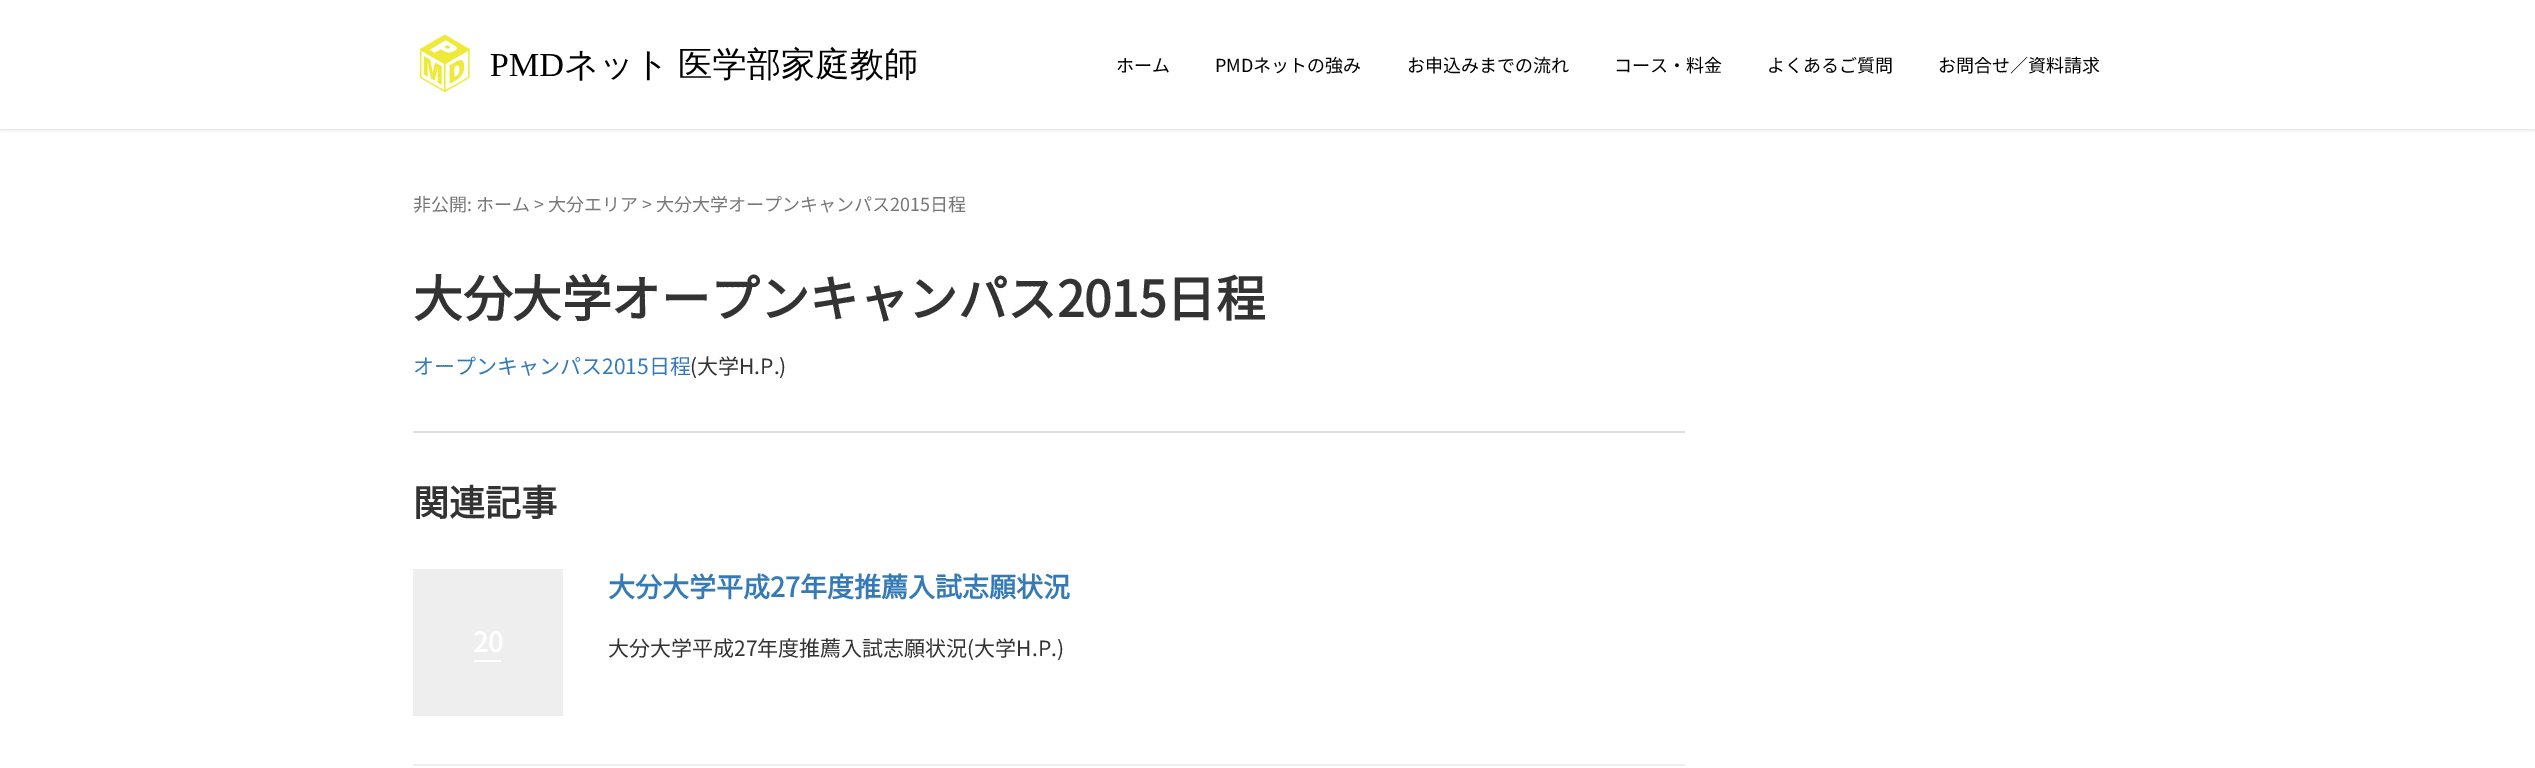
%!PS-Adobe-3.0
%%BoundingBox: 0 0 2535 768
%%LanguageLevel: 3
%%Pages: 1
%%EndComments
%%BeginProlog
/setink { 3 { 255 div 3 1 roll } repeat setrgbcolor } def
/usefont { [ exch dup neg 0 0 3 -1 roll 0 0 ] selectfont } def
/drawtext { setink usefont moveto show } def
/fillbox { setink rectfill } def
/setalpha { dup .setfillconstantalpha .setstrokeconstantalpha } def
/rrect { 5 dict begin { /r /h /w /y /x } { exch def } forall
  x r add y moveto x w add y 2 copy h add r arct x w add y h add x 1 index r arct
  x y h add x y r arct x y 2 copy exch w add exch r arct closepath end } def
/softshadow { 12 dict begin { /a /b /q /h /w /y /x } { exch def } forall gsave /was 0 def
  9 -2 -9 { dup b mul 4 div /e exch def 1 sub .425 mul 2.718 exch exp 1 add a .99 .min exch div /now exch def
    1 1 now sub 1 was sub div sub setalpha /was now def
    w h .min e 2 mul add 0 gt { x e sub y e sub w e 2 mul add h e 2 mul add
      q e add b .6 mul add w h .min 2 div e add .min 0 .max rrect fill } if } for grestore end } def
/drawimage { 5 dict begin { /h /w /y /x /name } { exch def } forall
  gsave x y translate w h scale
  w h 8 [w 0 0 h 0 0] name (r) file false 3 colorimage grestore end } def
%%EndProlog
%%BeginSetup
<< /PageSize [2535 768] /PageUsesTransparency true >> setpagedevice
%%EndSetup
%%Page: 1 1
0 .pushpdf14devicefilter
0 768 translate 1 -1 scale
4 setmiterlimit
0 0 2535 768 255 255 255 fillbox
gsave
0 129 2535 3 rectclip
0 0 0 setink
0 0 2535 129 0 2 0.2 softshadow
grestore
(assets/img1.rgb) 419 34 498 58 drawimage
(ホーム) 1116 72 /NotoSansJP-Thin 18 0 0 0 drawtext
(PMDネットの強み) 1215 72 /NotoSansJP-Thin 18 0 0 0 drawtext
(お申込みまでの流れ) 1407 72 /NotoSansJP-Thin 18 0 0 0 drawtext
(コース・料金) 1614 72 /NotoSansJP-Thin 18 0 0 0 drawtext
(よくあるご質問) 1767 72 /NotoSansJP-Thin 18 0 0 0 drawtext
(お問合せ／資料請求) 1938 72 /NotoSansJP-Thin 18 0 0 0 drawtext
(非公開: ホーム > 大分エリア > 大分大学オープンキャンパス2015日程) 413 211 /NotoSansJP-Thin 18 119 119 119 drawtext
(大分大学オープンキャンパス2015日程) 413 317 /NotoSansJP-Bold 49.5 51 51 51 drawtext
(オープンキャンパス2015日程) 413 374 /NotoSansJP-Thin 21 51 122 183 drawtext
(\(大学H.P.\)) 690 374 /NotoSansJP-Thin 21 51 51 51 drawtext
413 431 1272 2 221 221 221 fillbox
(関連記事) 413 516 /NotoSansJP-Bold 36 51 51 51 drawtext
413 764 1272 2 238 238 238 fillbox
413 569 150 147 238 238 238 fillbox
(20) 473 652 /NotoSansJP-Bold 27 255 255 255 drawtext
474 660 27 2 255 255 255 fillbox
(大分大学平成27年度推薦入試志願状況) 608 597 /NotoSansJP-Bold 27 51 122 183 drawtext
(大分大学平成27年度推薦入試志願状況\(大学H.P.\)) 608 656 /NotoSansJP-Thin 21 51 51 51 drawtext
.poppdf14devicefilter showpage
%%EOF
